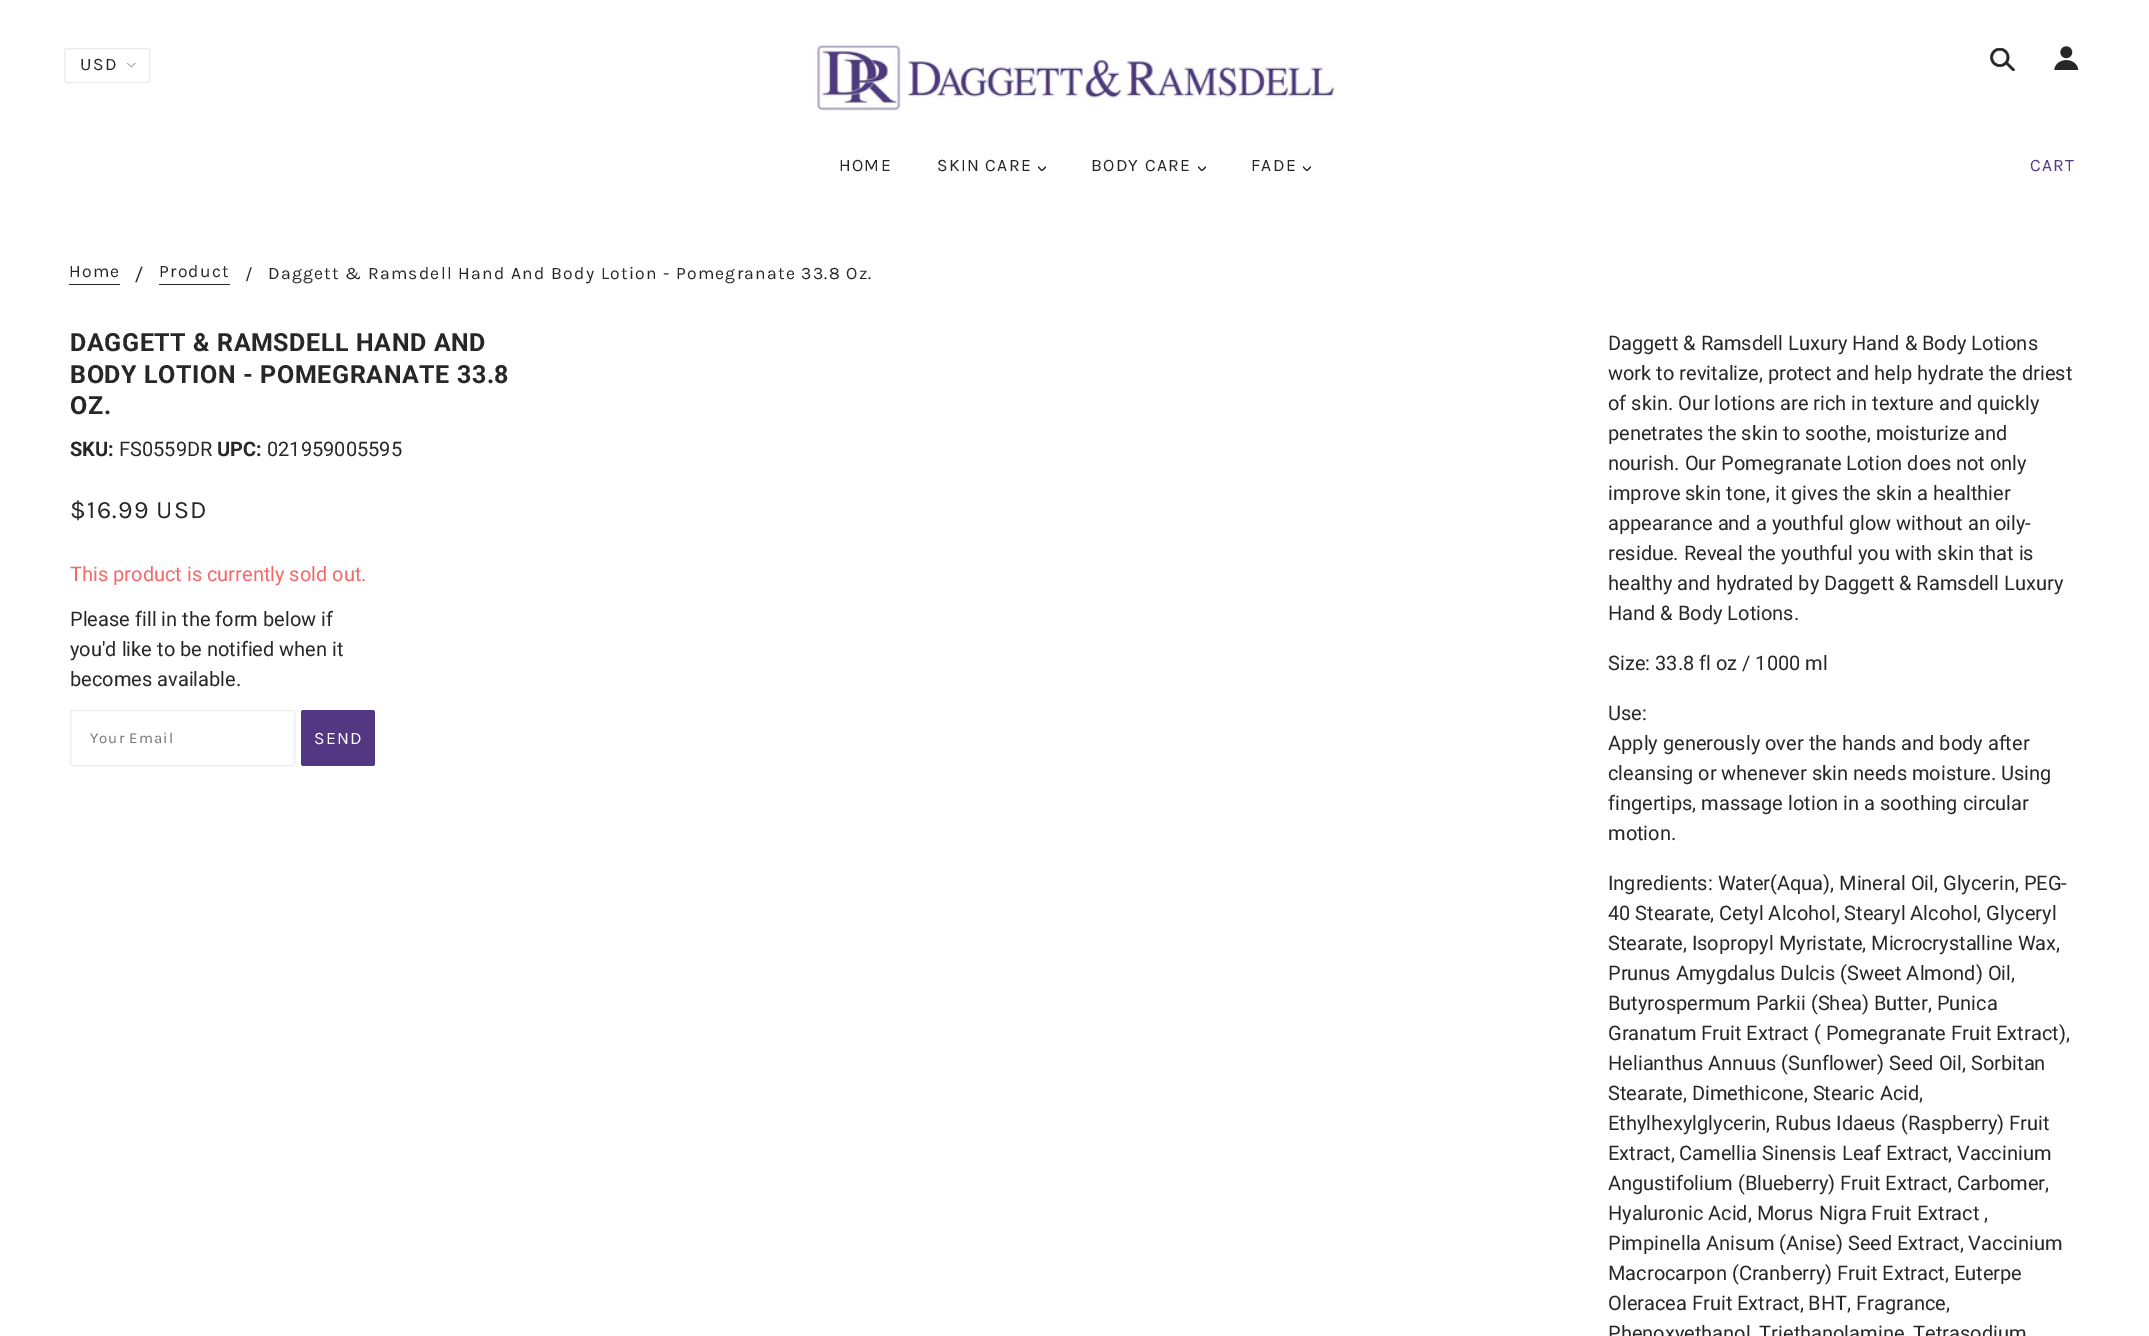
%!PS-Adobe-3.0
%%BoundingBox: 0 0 2149 1336
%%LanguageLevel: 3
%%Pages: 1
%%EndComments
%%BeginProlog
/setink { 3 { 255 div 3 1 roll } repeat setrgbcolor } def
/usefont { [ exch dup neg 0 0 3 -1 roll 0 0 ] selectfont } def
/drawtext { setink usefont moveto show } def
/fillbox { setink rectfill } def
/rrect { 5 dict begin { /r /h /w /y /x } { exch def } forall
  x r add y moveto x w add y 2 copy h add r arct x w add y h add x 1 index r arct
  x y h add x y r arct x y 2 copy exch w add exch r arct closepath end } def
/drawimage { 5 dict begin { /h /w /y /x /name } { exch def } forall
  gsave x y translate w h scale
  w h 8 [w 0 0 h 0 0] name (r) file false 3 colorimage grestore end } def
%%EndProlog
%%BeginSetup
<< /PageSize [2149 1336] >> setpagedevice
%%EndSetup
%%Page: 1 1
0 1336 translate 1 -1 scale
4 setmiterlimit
0 0 2149 1336 255 255 255 fillbox
(assets/img1.rgb) 126 63 10 5 drawimage
235 235 235 setink
64.5 48.5 85 34 2 rrect stroke
/Karla-Regular 17.5 usefont
39 39 39 setink
80 70 moveto 1.25 0 (USD) ashow
(assets/img2.rgb) 810 44 527 69 drawimage
(assets/img3.rgb) 1990 48 25 23 drawimage
(assets/img4.rgb) 2054 46 25 24 drawimage
839 171 moveto 1.25 0 (HOME) ashow
937 171 moveto 1.25 0 (SKIN CARE) ashow
(assets/img5.rgb) 1038 166 8 5 drawimage
1091 171 moveto 1.25 0 (BODY CARE) ashow
(assets/img5.rgb) 1198 166 8 5 drawimage
1251 171 moveto 1.25 0 (FADE) ashow
(assets/img5.rgb) 1303 166 8 5 drawimage
84 55 130 setink
2030 171 moveto 1.25 0 (CART) ashow
39 39 39 setink
69 277 moveto 1.25 0 (Home) ashow
69 284 51 1 39 39 39 fillbox
(/) 135 281 /Roboto-Regular 20 39 39 39 drawtext
/Karla-Regular 17.5 usefont
159 277 moveto 1.25 0 (Product) ashow
159 284 71 1 39 39 39 fillbox
245 280 moveto 1.25 0 (/) ashow
268 279 moveto 1.25 0 (Daggett & Ramsdell Hand And Body Lotion - Pomegranate 33.8 Oz.) ashow
/Roboto-Bold 25 usefont
70 351 moveto 0.6 0 (DAGGETT & RAMSDELL HAND AND) ashow
70 383 moveto 0.6 0 (BODY LOTION - POMEGRANATE 33.8) ashow
70 414 moveto 0.6 0 (OZ.) ashow
(SKU:) 70 456 /Roboto-Bold 20 39 39 39 drawtext
(FS0559DR) 119 456 /Roboto-Regular 20 39 39 39 drawtext
(UPC:) 217 456 /Roboto-Bold 20 39 39 39 drawtext
(021959005595) 267 456 /Roboto-Regular 20 39 39 39 drawtext
(Daggett & Ramsdell Luxury Hand & Body Lotions) 1608 350 /Roboto-Regular 20 39 39 39 drawtext
(work to revitalize, protect and help hydrate the driest) 1608 380 /Roboto-Regular 20 39 39 39 drawtext
(of skin. Our lotions are rich in texture and quickly) 1608 410 /Roboto-Regular 20 39 39 39 drawtext
(penetrates the skin to soothe, moisturize and) 1608 440 /Roboto-Regular 20 39 39 39 drawtext
(nourish. Our Pomegranate Lotion does not only) 1608 470 /Roboto-Regular 20 39 39 39 drawtext
(improve skin tone, it gives the skin a healthier) 1608 500 /Roboto-Regular 20 39 39 39 drawtext
(appearance and a youthful glow without an oily-) 1608 530 /Roboto-Regular 20 39 39 39 drawtext
(residue. Reveal the youthful you with skin that is) 1608 560 /Roboto-Regular 20 39 39 39 drawtext
(healthy and hydrated by Daggett & Ramsdell Luxury) 1608 590 /Roboto-Regular 20 39 39 39 drawtext
(Hand & Body Lotions.) 1608 620 /Roboto-Regular 20 39 39 39 drawtext
(Size: 33.8 fl oz / 1000 ml) 1608 670 /Roboto-Regular 20 39 39 39 drawtext
(Use:) 1608 720 /Roboto-Regular 20 39 39 39 drawtext
(Apply generously over the hands and body after) 1608 750 /Roboto-Regular 20 39 39 39 drawtext
(cleansing or whenever skin needs moisture. Using) 1608 780 /Roboto-Regular 20 39 39 39 drawtext
(fingertips, massage lotion in a soothing circular) 1608 810 /Roboto-Regular 20 39 39 39 drawtext
(motion.) 1608 840 /Roboto-Regular 20 39 39 39 drawtext
(Ingredients: Water\(Aqua\), Mineral Oil, Glycerin, PEG-) 1608 890 /Roboto-Regular 20 39 39 39 drawtext
(40 Stearate, Cetyl Alcohol, Stearyl Alcohol, Glyceryl) 1608 920 /Roboto-Regular 20 39 39 39 drawtext
(Stearate, Isopropyl Myristate, Microcrystalline Wax,) 1608 950 /Roboto-Regular 20 39 39 39 drawtext
(Prunus Amygdalus Dulcis \(Sweet Almond\) Oil,) 1608 980 /Roboto-Regular 20 39 39 39 drawtext
(Butyrospermum Parkii \(Shea\) Butter, Punica) 1608 1010 /Roboto-Regular 20 39 39 39 drawtext
(Granatum Fruit Extract \( Pomegranate Fruit Extract\),) 1608 1040 /Roboto-Regular 20 39 39 39 drawtext
(Helianthus Annuus \(Sunflower\) Seed Oil, Sorbitan) 1608 1070 /Roboto-Regular 20 39 39 39 drawtext
(Stearate, Dimethicone, Stearic Acid,) 1608 1100 /Roboto-Regular 20 39 39 39 drawtext
(Ethylhexylglycerin, Rubus Idaeus \(Raspberry\) Fruit) 1608 1130 /Roboto-Regular 20 39 39 39 drawtext
(Extract, Camellia Sinensis Leaf Extract, Vaccinium) 1608 1160 /Roboto-Regular 20 39 39 39 drawtext
(Angustifolium \(Blueberry\) Fruit Extract, Carbomer,) 1608 1190 /Roboto-Regular 20 39 39 39 drawtext
(Hyaluronic Acid, Morus Nigra Fruit Extract ,) 1608 1220 /Roboto-Regular 20 39 39 39 drawtext
(Pimpinella Anisum \(Anise\) Seed Extract, Vaccinium) 1608 1250 /Roboto-Regular 20 39 39 39 drawtext
(Macrocarpon \(Cranberry\) Fruit Extract, Euterpe) 1608 1280 /Roboto-Regular 20 39 39 39 drawtext
(Oleracea Fruit Extract, BHT, Fragrance,) 1608 1310 /Roboto-Regular 20 39 39 39 drawtext
(Phenoxyethanol, Triethanolamine, Tetrasodium) 1608 1340 /Roboto-Regular 20 39 39 39 drawtext
/Karla-Regular 25 usefont
70 518 moveto 1.25 0 ($16.99 USD) ashow
(This product is currently sold out.) 70 581 /Roboto-Regular 20 246 103 103 drawtext
(Please fill in the form below if) 70 626 /Roboto-Regular 20 39 39 39 drawtext
(you'd like to be notified when it) 70 656 /Roboto-Regular 20 39 39 39 drawtext
(becomes available.) 70 686 /Roboto-Regular 20 39 39 39 drawtext
235 235 235 setink
70.5 710.5 224 55 2 rrect stroke
/Karla-Regular 15 usefont
117 117 117 setink
90 743 moveto 1 0 (Your Email) ashow
84 55 130 setink
301 710 74 56 2.5 rrect fill
/Karla-Regular 17.5 usefont
255 255 255 setink
314 744 moveto 1.25 0 (SEND) ashow
showpage
%%EOF
